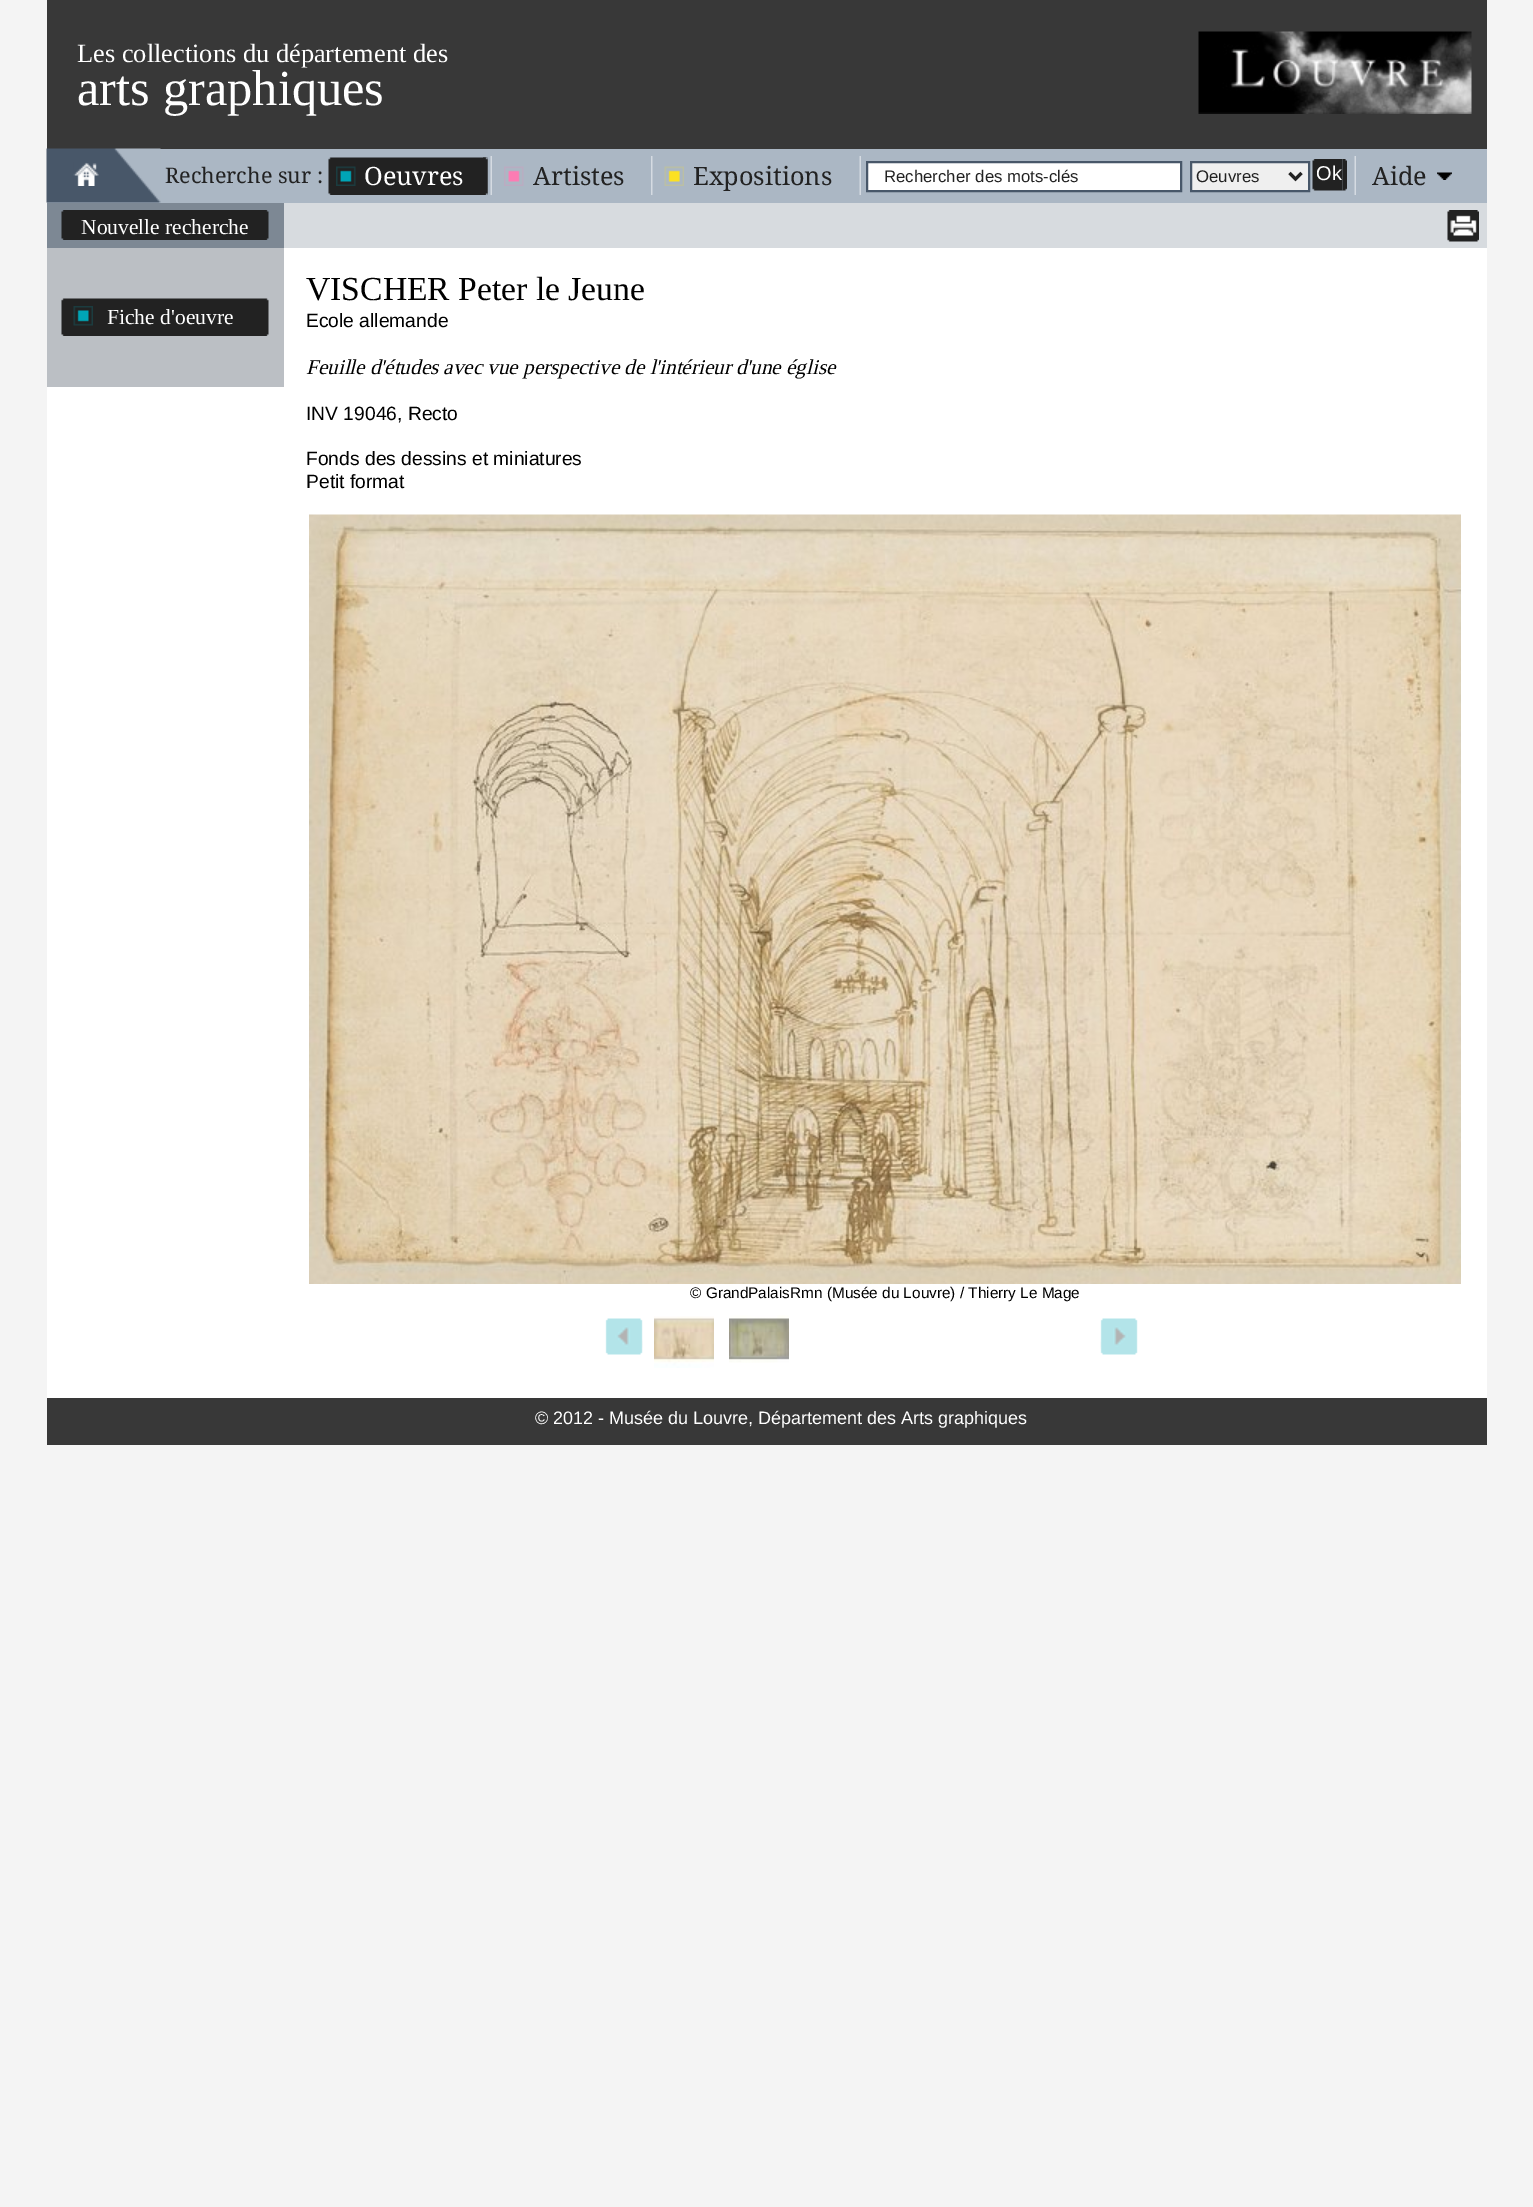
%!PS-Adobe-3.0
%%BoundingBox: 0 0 1533 2207
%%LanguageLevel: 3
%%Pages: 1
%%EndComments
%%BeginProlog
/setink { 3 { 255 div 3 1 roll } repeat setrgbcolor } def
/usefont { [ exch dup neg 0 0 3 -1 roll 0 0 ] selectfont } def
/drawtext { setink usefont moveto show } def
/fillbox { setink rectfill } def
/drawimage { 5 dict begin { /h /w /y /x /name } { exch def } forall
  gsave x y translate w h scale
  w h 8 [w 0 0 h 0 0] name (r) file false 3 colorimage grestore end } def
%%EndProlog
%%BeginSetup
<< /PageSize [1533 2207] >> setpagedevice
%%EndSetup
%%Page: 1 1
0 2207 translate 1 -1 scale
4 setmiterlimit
0 0 1533 2207 244 244 244 fillbox
47 248 1440 1150 255 255 255 fillbox
47 0 1440 149 56 56 56 fillbox
(Les collections du département des) 77 62 /Tinos-Regular 26.4 255 255 255 drawtext
(assets/img1.rgb) 1198 31 274 83 drawimage
(arts graphiques) 77 105 /Tinos-Regular 50.5 255 255 255 drawtext
47 149 1440 54 171 183 196 fillbox
(assets/img2.rgb) 46 148 115 55 drawimage
(assets/img3.rgb) 73 162 26 24 drawimage
(Recherche sur :) 165 183 /DroidSerif-Regular 21.5 34 34 34 drawtext
(assets/img4.rgb) 490 156 2 39 drawimage
(assets/img5.rgb) 328 157 160 38 drawimage
(assets/img6.rgb) 483 157 5 38 drawimage
(assets/img7.rgb) 336 166 20 20 drawimage
(Oeuvres) 364 185 /DroidSerif-Regular 25.25 255 255 255 drawtext
(assets/img8.rgb) 651 156 2 39 drawimage
(assets/img9.rgb) 504 166 20 20 drawimage
(Artistes) 533 185 /DroidSerif-Regular 25.25 34 34 34 drawtext
(assets/img4.rgb) 859 156 2 39 drawimage
(assets/img10.rgb) 664 166 20 20 drawimage
(Expositions) 693 185 /DroidSerif-Regular 25.25 34 34 34 drawtext
255 255 255 setink
867 162 moveto 1181 162 lineto 1181 191 lineto 867 191 lineto closepath gsave fill grestore
72 87 105 setink
2 setlinewidth
stroke
(Rechercher des mots-clés) 884 182 /LiberationSans-Regular 16.75 34 34 34 drawtext
239 239 239 setink
1191 162 moveto 1309 162 lineto 1309 191 lineto 1191 191 lineto closepath gsave fill grestore
72 87 105 setink
stroke
34 34 34 setink
3 setlinewidth
1289.5 173 moveto 1295.5 179 lineto 1301.5 173 lineto stroke
(Oeuvres) 1196 182 /LiberationSans-Regular 16.75 34 34 34 drawtext
(assets/img11.rgb) 1312 159 31 32 drawimage
(Ok) 1316 180 /LiberationSans-Regular 20 255 255 255 drawtext
(assets/img12.rgb) 1342 159 5 32 drawimage
(assets/img4.rgb) 1354 156 2 39 drawimage
(Aide) 1372 185 /DroidSerif-Regular 25.25 34 34 34 drawtext
(assets/img13.rgb) 1437 172 15 8 drawimage
47 203 237 45 125 136 148 fillbox
(assets/img14.rgb) 61 210 208 27 drawimage
(Nouvelle recherche) 81 234 /Tinos-Regular 21.5 255 255 255 drawtext
(assets/img15.rgb) 61 237 208 3 drawimage
47 248 237 139 187 191 196 fillbox
(assets/img16.rgb) 61 298 208 32 drawimage
(assets/img17.rgb) 73 306 20 20 drawimage
(Fiche d'oeuvre) 107 324 /Tinos-Regular 21.5 255 255 255 drawtext
(assets/img18.rgb) 61 330 208 6 drawimage
284 203 1203 45 215 219 223 fillbox
(assets/img19.rgb) 1447 210 32 32 drawimage
(VISCHER Peter le Jeune) 306 300 /Tinos-Regular 33.6 0 0 0 drawtext
(Ecole allemande) 306 327 /LiberationSans-Regular 19.25 0 0 0 drawtext
(Feuille d'études avec vue perspective de l'intérieur d'une église) 306 374 /Tinos-Italic 21.1 0 0 0 drawtext
(INV 19046, Recto) 306 420 /LiberationSans-Regular 19.25 0 0 0 drawtext
(Fonds des dessins et miniatures) 306 465 /LiberationSans-Regular 19.25 0 0 0 drawtext
(Petit format) 306 488 /LiberationSans-Regular 19.25 0 0 0 drawtext
(assets/img20.rgb) 309 514 1152 770 drawimage
(© GrandPalaisRmn \(Musée du Louvre\) / Thierry Le Mage) 690 1298 /LiberationSans-Regular 15.35 0 0 0 drawtext
(assets/img21.rgb) 605 1318 38 37 drawimage
(assets/img22.rgb) 654 1316 60 52 drawimage
(assets/img23.rgb) 729 1315 60 48 drawimage
(assets/img24.rgb) 1100 1318 38 37 drawimage
47 1398 1440 47 56 56 56 fillbox
(© 2012 - Musée du Louvre, Département des Arts graphiques) 535 1424 /LiberationSans-Regular 18 255 255 255 drawtext
showpage
%%EOF
